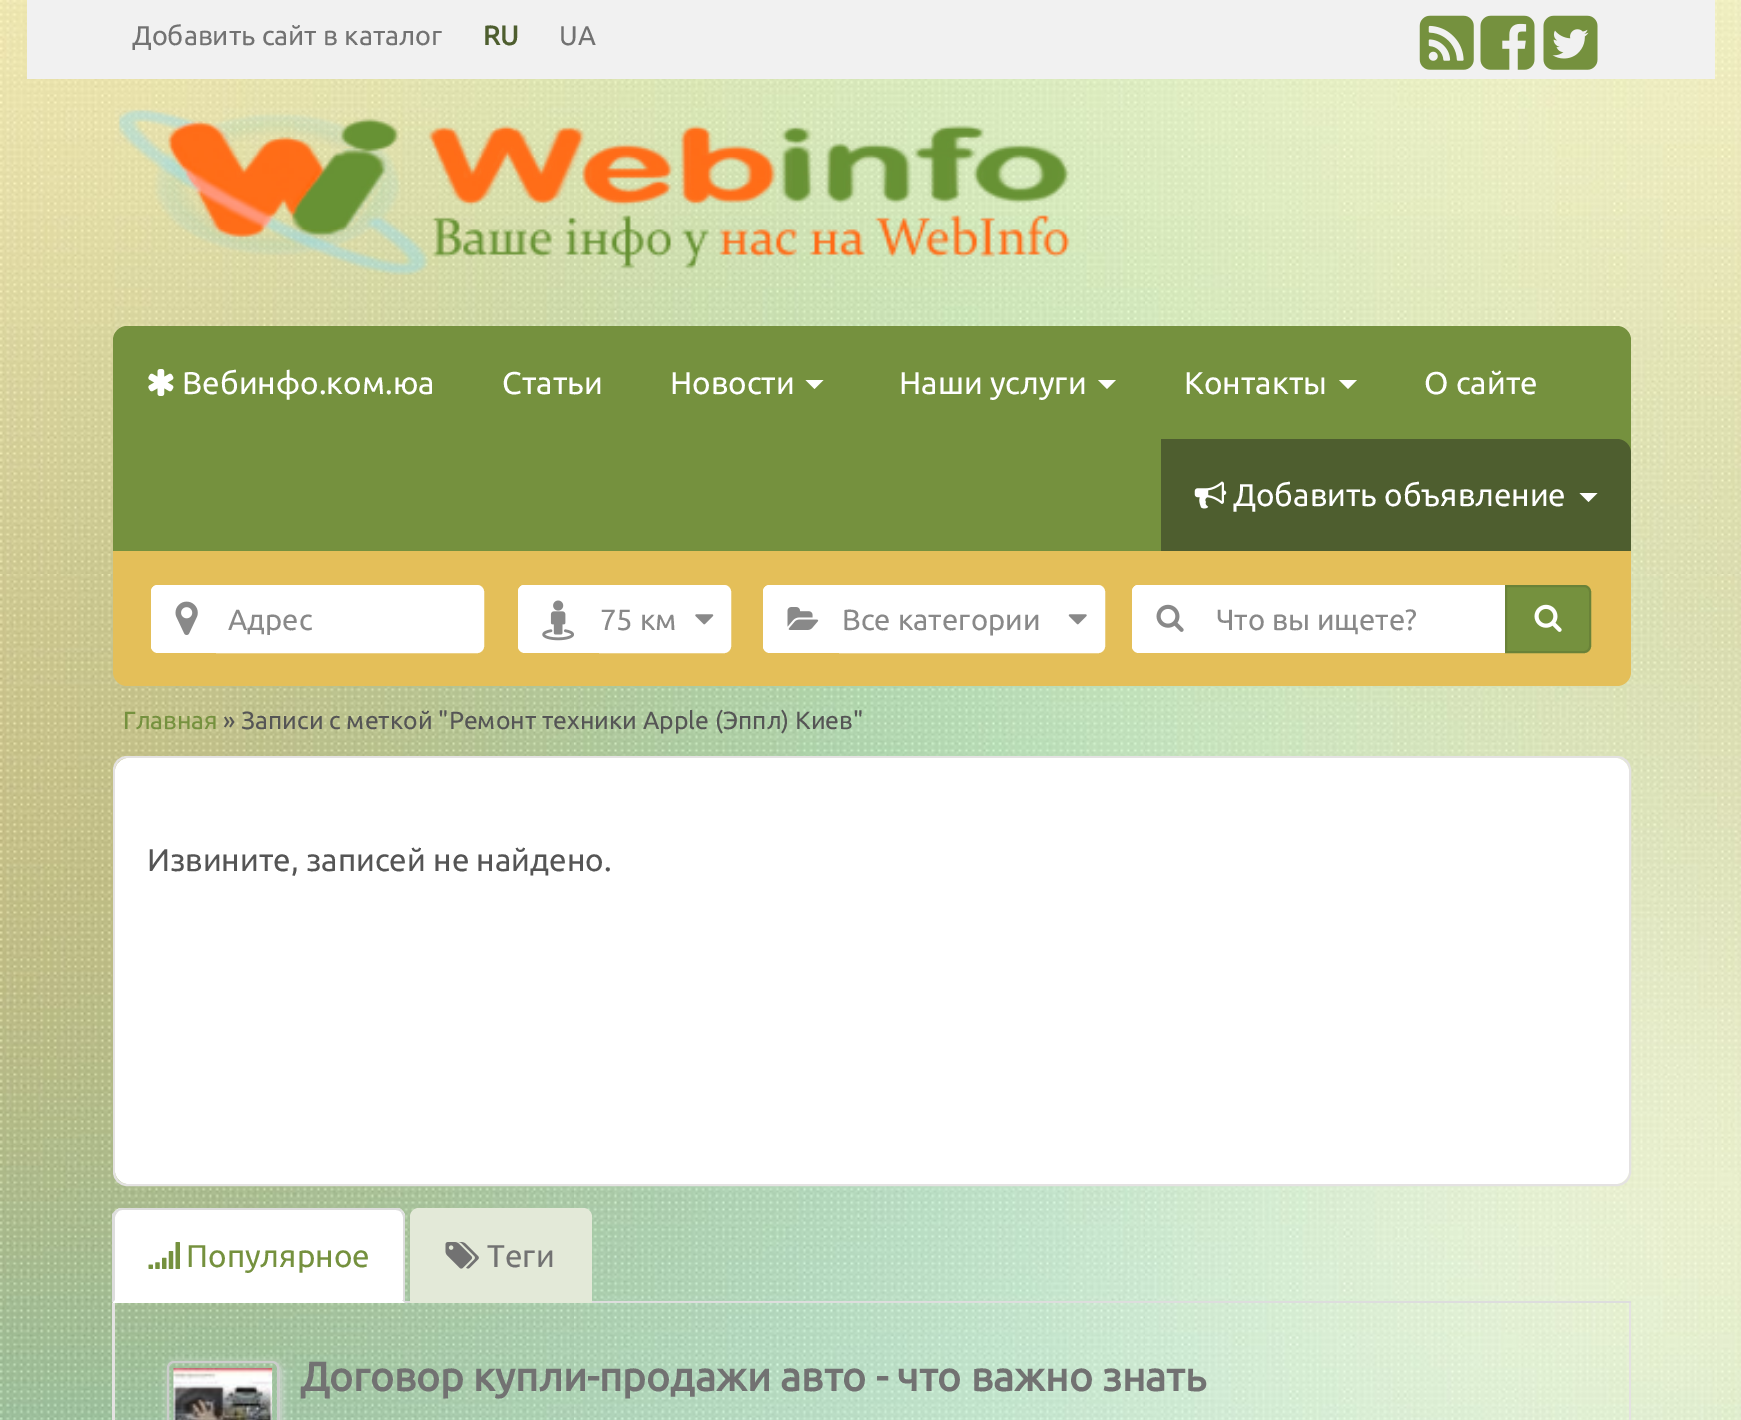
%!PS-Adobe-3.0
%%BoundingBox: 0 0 1741 1420
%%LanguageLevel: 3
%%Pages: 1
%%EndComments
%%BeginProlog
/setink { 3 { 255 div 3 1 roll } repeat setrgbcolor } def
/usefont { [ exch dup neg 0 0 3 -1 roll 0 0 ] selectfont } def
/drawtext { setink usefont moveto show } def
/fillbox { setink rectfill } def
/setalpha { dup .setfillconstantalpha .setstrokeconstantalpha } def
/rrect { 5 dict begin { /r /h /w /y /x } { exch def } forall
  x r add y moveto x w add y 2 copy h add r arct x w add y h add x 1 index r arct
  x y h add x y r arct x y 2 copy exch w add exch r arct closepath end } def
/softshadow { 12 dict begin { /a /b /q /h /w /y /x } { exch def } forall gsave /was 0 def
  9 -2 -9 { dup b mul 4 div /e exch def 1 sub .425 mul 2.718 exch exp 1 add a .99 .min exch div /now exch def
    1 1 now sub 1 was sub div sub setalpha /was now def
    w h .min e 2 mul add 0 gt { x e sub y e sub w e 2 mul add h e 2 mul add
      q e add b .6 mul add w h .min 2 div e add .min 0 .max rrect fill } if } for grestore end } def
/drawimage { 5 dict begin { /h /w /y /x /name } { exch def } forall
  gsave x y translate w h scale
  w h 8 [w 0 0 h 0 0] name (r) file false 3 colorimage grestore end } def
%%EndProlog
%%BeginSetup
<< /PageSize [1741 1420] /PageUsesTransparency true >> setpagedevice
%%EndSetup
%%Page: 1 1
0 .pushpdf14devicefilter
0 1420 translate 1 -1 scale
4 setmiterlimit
0 0 1741 1420 255 255 255 fillbox
(assets/img1.rgb) 0 0 1741 1420 drawimage
27 0 1688 79 241 241 241 fillbox
(Добавить сайт в каталог) 132 45 /Ubuntu-Regular 27 114 114 114 drawtext
(RU) 483 45 /Ubuntu-Bold 27 78 94 47 drawtext
(UA) 559 45 /Ubuntu-Regular 27 114 114 114 drawtext
(assets/img2.rgb) 1419 15 55 55 drawimage
(assets/img3.rgb) 1480 15 55 55 drawimage
(assets/img4.rgb) 1543 15 55 55 drawimage
(assets/img5.rgb) 118 109 952 166 drawimage
117 145 62 setink
127 326 moveto 1617 326 lineto 1624.5 326 1631 332.5 1631 340 curveto 1631 551 lineto 113 551 lineto 113 340 lineto 113 332.5 119.5 326 127 326 curveto closepath fill
(assets/img6.rgb) 148 369 26 27 drawimage
(Вебинфо.ком.юа) 182 394 /Ubuntu-Regular 31.5 255 255 255 drawtext
(Статьи) 502 394 /Ubuntu-Regular 31.5 255 255 255 drawtext
(Новости) 670 394 /Ubuntu-Regular 31.5 255 255 255 drawtext
805.5 380 moveto 823.5 380 lineto 814.5 389 lineto closepath fill
(Наши услуги) 899 394 /Ubuntu-Regular 31.5 255 255 255 drawtext
1098 380 moveto 1116 380 lineto 1107 389 lineto closepath fill
(Контакты) 1184 394 /Ubuntu-Regular 31.5 255 255 255 drawtext
1339 380 moveto 1357 380 lineto 1348 389 lineto closepath fill
(О сайте) 1424 394 /Ubuntu-Regular 31.5 255 255 255 drawtext
78 94 47 setink
1161 439 moveto 1617 439 lineto 1624.5 439 1631 445.5 1631 453 curveto 1631 551 lineto 1161 551 lineto closepath fill
(assets/img7.rgb) 1194 481 33 28 drawimage
(Добавить объявление) 1233 506 /Ubuntu-Regular 31.5 255 255 255 drawtext
1579.5 493 moveto 1597.5 493 lineto 1588.5 502 lineto closepath fill
228 191 89 setink
113 551 moveto 1631 551 lineto 1631 672 lineto 1631 679.5 1624.5 686 1617 686 curveto 127 686 lineto 119.5 686 113 679.5 113 672 curveto closepath fill
255 255 255 setink
158 585 moveto 218 585 lineto 218 653 lineto 158 653 lineto 154 653 151 650 151 646 curveto 151 592 lineto 151 588 154 585 158 585 curveto closepath fill
158 585 moveto 218 585 lineto 218 652 lineto 158 652 lineto 154 652 151 649 151 646 curveto 151 592 lineto 151 588 154 585 158 585 curveto closepath 158 587 moveto 218 587 lineto 218 650 lineto 158 650 lineto 155 650 153 648 153 646 curveto 153 592 lineto 153 589 155 587 158 587 curveto closepath eofill
(assets/img8.rgb) 175 601 23 34 drawimage
217 586 moveto 477 586 lineto 480.5 586 483 588.5 483 592 curveto 483 646 lineto 483 649.5 480.5 652 477 652 curveto 217 652 lineto closepath gsave fill grestore
2 setlinewidth
stroke
gsave
218 603 241 32 rectclip
(Адрес) 228 630 /Ubuntu-Regular 29.25 137 137 137 drawtext
grestore
525 585 moveto 601 585 lineto 601 653 lineto 525 653 lineto 521 653 518 650 518 646 curveto 518 592 lineto 518 588 521 585 525 585 curveto closepath fill
524 585 moveto 601 585 lineto 601 652 lineto 524 652 lineto 521 652 518 649 518 646 curveto 518 592 lineto 518 588 521 585 524 585 curveto closepath 524 587 moveto 601 587 lineto 601 650 lineto 524 650 lineto 522 650 520 648 520 646 curveto 520 592 lineto 520 589 522 587 524 587 curveto closepath eofill
(assets/img9.rgb) 542 600 32 41 drawimage
600 586 moveto 724 586 lineto 727.5 586 730 588.5 730 592 curveto 730 646 lineto 730 649.5 727.5 652 724 652 curveto 600 652 lineto closepath gsave fill grestore
stroke
(75 км) 600 630 /Ubuntu-Regular 29.25 137 137 137 drawtext
(assets/img10.rgb) 695 614 19 11 drawimage
255 255 255 setink
770 585 moveto 842 585 lineto 842 653 lineto 770 653 lineto 766 653 763 650 763 646 curveto 763 592 lineto 763 588 766 585 770 585 curveto closepath fill
770 585 moveto 842 585 lineto 842 652 lineto 770 652 lineto 766 652 763 649 763 646 curveto 763 592 lineto 763 588 766 585 770 585 curveto closepath 770 587 moveto 842 587 lineto 842 650 lineto 770 650 lineto 767 650 765 648 765 646 curveto 765 592 lineto 765 589 767 587 770 587 curveto closepath eofill
(assets/img11.rgb) 787 607 32 23 drawimage
840 586 moveto 1098 586 lineto 1101.5 586 1104 588.5 1104 592 curveto 1104 646 lineto 1104 649.5 1101.5 652 1098 652 curveto 840 652 lineto closepath gsave fill grestore
stroke
(Все категории) 842 630 /Ubuntu-Regular 29.25 137 137 137 drawtext
(assets/img12.rgb) 1068 614 19 11 drawimage
255 255 255 setink
1139 585 moveto 1206 585 lineto 1206 653 lineto 1139 653 lineto 1135 653 1132 650 1132 646 curveto 1132 592 lineto 1132 588 1135 585 1139 585 curveto closepath fill
1138 585 moveto 1206 585 lineto 1206 652 lineto 1138 652 lineto 1135 652 1132 649 1132 646 curveto 1132 592 lineto 1132 588 1135 585 1138 585 curveto closepath 1138 587 moveto 1206 587 lineto 1206 650 lineto 1138 650 lineto 1136 650 1134 648 1134 646 curveto 1134 592 lineto 1134 589 1136 587 1138 587 curveto closepath eofill
(assets/img13.rgb) 1156 604 28 28 drawimage
1206 585 299 68 255 255 255 fillbox
(Что вы ищете?) 1216 630 /Ubuntu-Regular 29.25 137 137 137 drawtext
117 145 62 setink
1506 586 moveto 1584 586 lineto 1587.5 586 1590 588.5 1590 592 curveto 1590 646 lineto 1590 649.5 1587.5 652 1584 652 curveto 1506 652 lineto closepath gsave fill grestore
105 130 56 setink
stroke
(assets/img14.rgb) 1534 604 28 28 drawimage
(Главная) 123 729 /Ubuntu-Regular 24.75 117 145 62 drawtext
(» Записи с меткой "Ремонт техники Apple \(Эппл\) Киев") 223 729 /Ubuntu-Regular 24.75 85 85 85 drawtext
228 226 226 setink
114 757 1516 428 13 rrect stroke
255 255 255 setink
115 758 1514 426 14 rrect fill
(Извините, записей не найдено.) 147 871 /Ubuntu-Regular 31.5 85 85 85 drawtext
405 1301 1226 2 221 221 221 fillbox
255 255 255 setink
122 1208 moveto 396 1208 lineto 401 1208 405 1212 405 1217 curveto 405 1303 lineto 113 1303 lineto 113 1217 lineto 113 1212 117 1208 122 1208 curveto closepath fill
221 221 221 setink
122 1210 moveto 120 1210 118 1211 117 1213 curveto 115 1211 lineto 120 1208 lineto 398 1208 lineto 400 1208 402 1210 402 1211 curveto 401 1212 lineto 400 1211 398 1210 396 1210 curveto closepath fill
405 1303 moveto 405 1217 lineto 405 1215 404 1212 402 1211 curveto 401 1212 lineto 402 1214 403 1215 403 1217 curveto 403 1300 lineto 402 1300 lineto closepath fill
112 1303 moveto 112 1214 lineto 115 1211 lineto 117 1213 lineto 116 1214 115 1216 115 1217 curveto 115 1300 lineto closepath fill
(assets/img15.rgb) 148 1242 32 27 drawimage
(Популярное) 186 1267 /Ubuntu-Regular 31.5 117 145 62 drawtext
227 233 216 setink
419 1208 moveto 583 1208 lineto 588 1208 592 1212 592 1217 curveto 592 1303 lineto 410 1303 lineto 410 1217 lineto 410 1212 414 1208 419 1208 curveto closepath fill
(assets/img16.rgb) 445 1242 34 27 drawimage
(Теги) 487 1267 /Ubuntu-Regular 31.5 114 114 114 drawtext
228 226 226 setink
112 1303 moveto 1631 1303 lineto 1631 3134 lineto 1631 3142 1625 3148 1618 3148 curveto 126 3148 lineto 119 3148 112 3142 112 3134 curveto closepath 115 1303 moveto 1629 1303 lineto 1629 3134 lineto 1629 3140 1624 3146 1618 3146 curveto 126 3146 lineto 120 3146 115 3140 115 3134 curveto closepath eofill
gsave
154 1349 moveto 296 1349 lineto 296 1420 lineto 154 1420 lineto closepath 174 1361 moveto 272 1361 lineto 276 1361 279 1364 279 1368 curveto 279 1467 lineto 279 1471 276 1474 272 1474 curveto 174 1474 lineto 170 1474 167 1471 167 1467 curveto 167 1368 lineto 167 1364 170 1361 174 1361 curveto closepath eoclip newpath
219 219 219 setink
169 1364 112 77 7 4.5 1 softshadow
grestore
204 204 204 setink
168 1362 110 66 6 rrect stroke
(assets/img17.rgb) 173 1368 100 52 drawimage
(Договор купли-продажи авто - что важно знать) 300 1391 /Ubuntu-Bold 40.5 114 114 114 drawtext
.poppdf14devicefilter showpage
%%EOF
